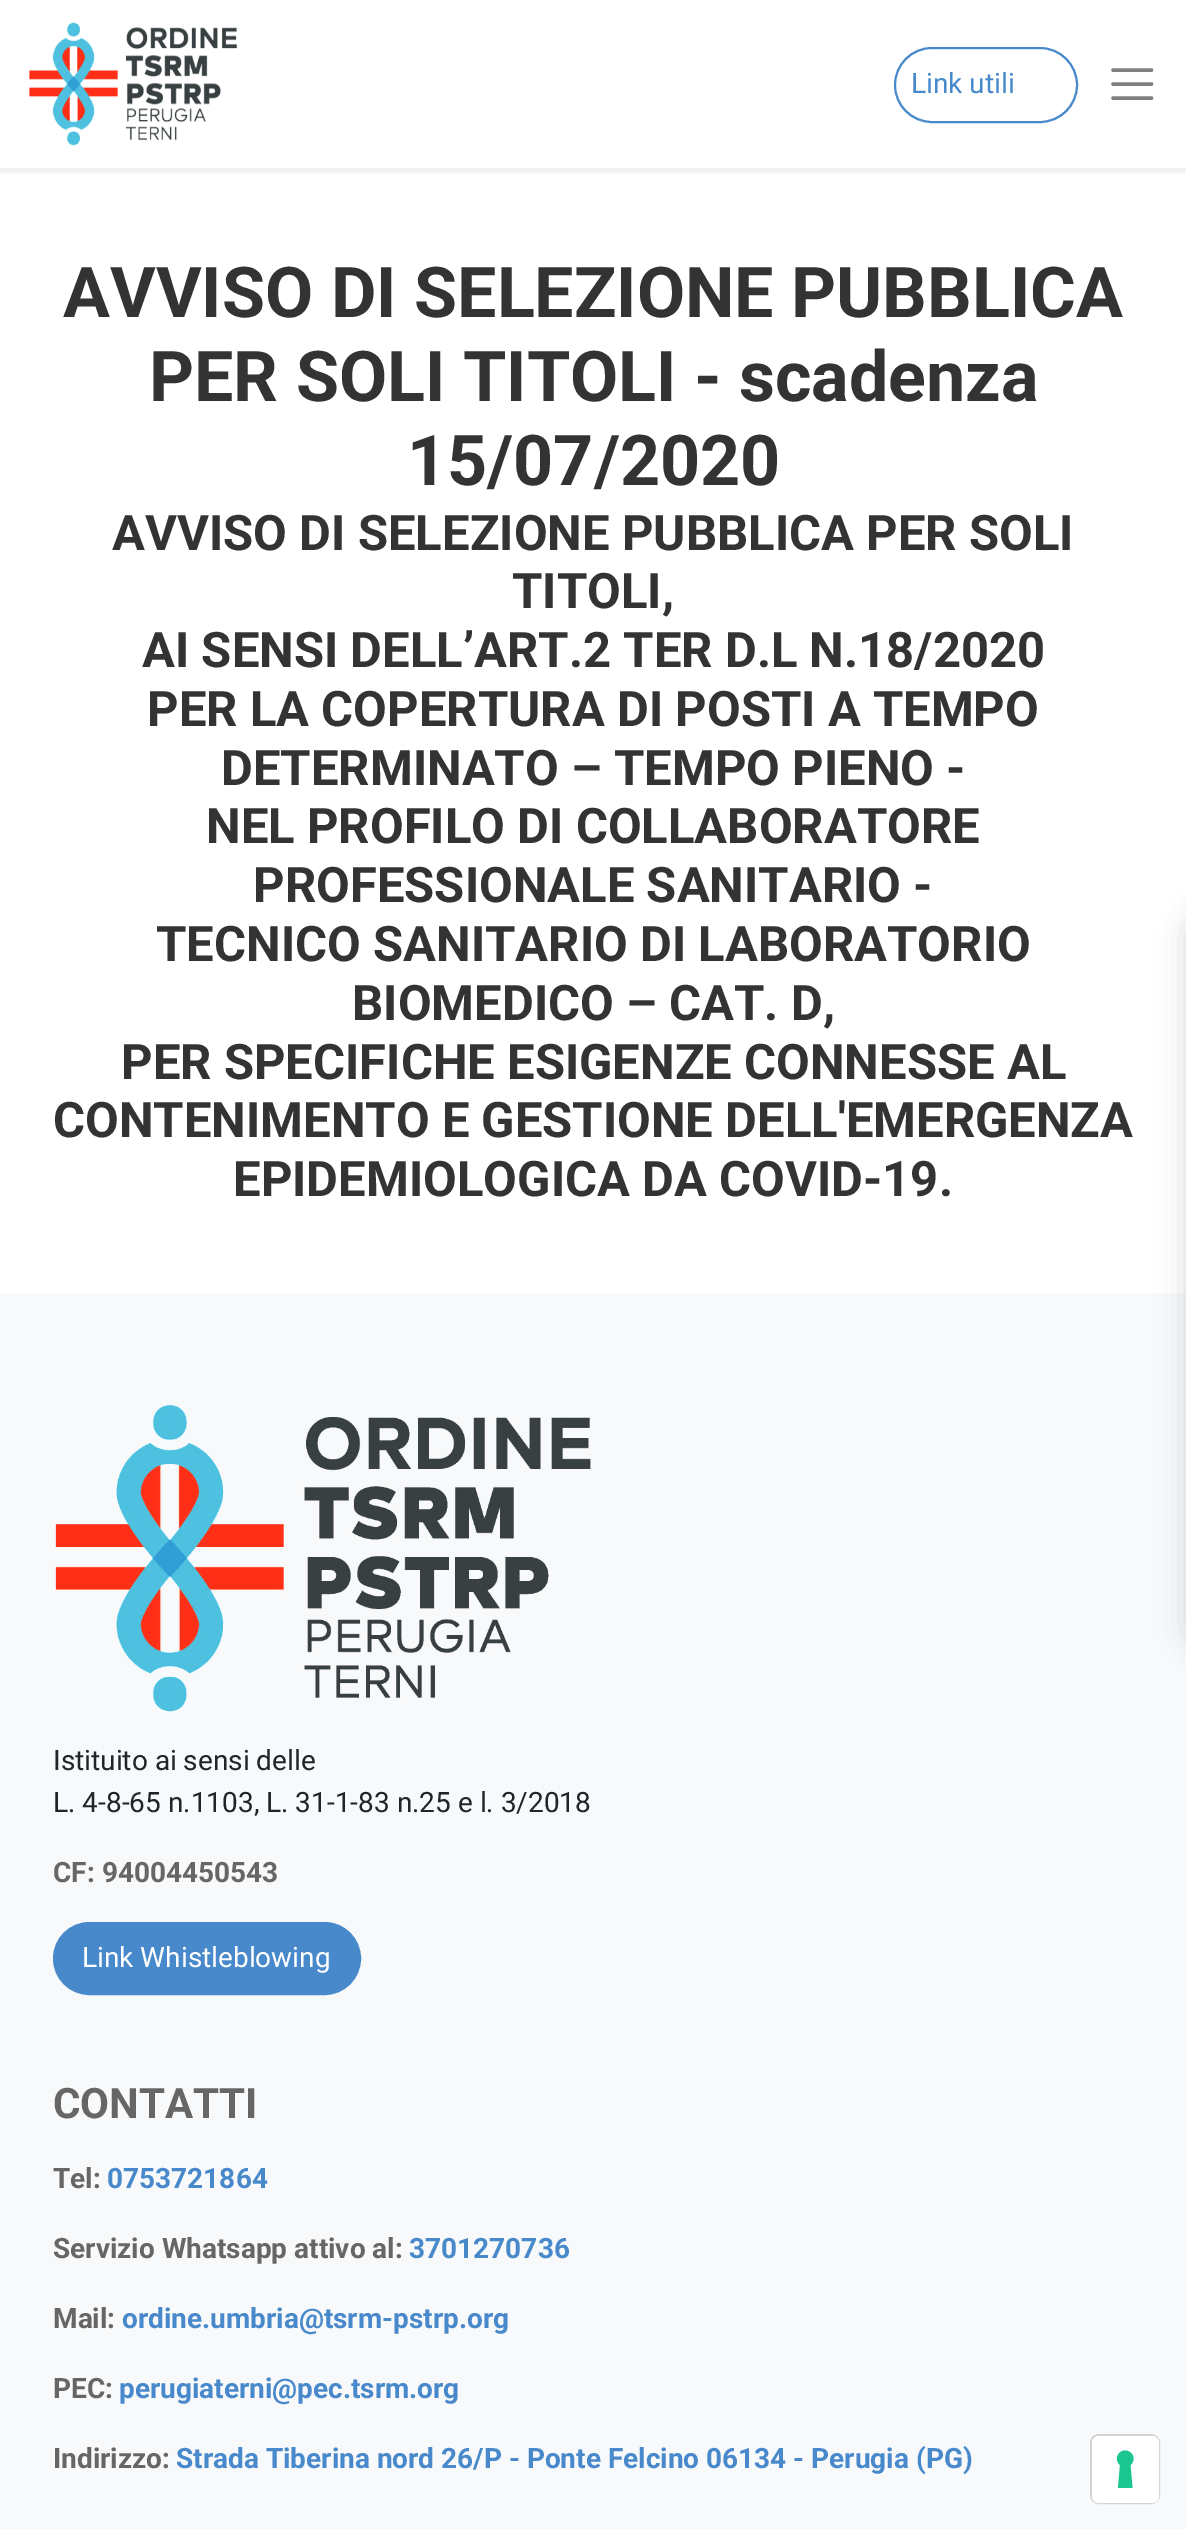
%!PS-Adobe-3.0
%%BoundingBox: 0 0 1186 2529
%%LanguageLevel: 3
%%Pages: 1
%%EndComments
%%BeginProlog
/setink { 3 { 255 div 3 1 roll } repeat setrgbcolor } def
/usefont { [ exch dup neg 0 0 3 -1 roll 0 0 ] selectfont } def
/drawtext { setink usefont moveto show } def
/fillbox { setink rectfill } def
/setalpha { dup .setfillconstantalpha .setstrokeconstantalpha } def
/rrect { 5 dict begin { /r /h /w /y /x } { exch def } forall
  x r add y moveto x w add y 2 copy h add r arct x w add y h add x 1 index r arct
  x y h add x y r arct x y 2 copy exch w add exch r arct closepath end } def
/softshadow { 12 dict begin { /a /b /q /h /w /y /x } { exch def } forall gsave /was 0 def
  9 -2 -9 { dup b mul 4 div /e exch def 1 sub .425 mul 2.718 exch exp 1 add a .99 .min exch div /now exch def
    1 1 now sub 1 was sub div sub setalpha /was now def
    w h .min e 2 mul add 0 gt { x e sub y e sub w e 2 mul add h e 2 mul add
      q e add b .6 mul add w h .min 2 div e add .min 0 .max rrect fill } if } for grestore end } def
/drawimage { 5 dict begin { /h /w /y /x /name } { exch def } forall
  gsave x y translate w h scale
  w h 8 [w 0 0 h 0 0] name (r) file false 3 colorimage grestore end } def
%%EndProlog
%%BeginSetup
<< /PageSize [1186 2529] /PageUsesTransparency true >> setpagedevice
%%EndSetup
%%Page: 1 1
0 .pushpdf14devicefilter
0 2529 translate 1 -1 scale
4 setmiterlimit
0 0 1186 2529 255 255 255 fillbox
gsave
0 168 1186 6 rectclip
0 0 0 setink
0 4 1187 168 0 3.5 0.07 softshadow
grestore
(assets/img1.rgb) 29 22 209 124 drawimage
72 137 203 setink
2 setlinewidth
895 48 182 74 37 rrect stroke
(Link utili) 911 93 /Roboto-Regular 28 72 137 203 drawtext
128 128 128 setink
3.5 setlinewidth
1 setlinecap
1113 70 moveto 1151.5 70 lineto 1113 84 moveto 1151.5 84 lineto 1113 98 moveto 1151.5 98 lineto stroke
(AVVISO DI SELEZIONE PUBBLICA) 63 317 /Roboto-Bold 70 51 51 51 drawtext
(PER SOLI TITOLI - scadenza) 149 401 /Roboto-Bold 70 51 51 51 drawtext
(15/07/2020) 407 485 /Roboto-Bold 70 51 51 51 drawtext
(AVVISO DI SELEZIONE PUBBLICA PER SOLI) 112 550 /Roboto-Bold 49 51 51 51 drawtext
(TITOLI,) 512 608 /Roboto-Bold 49 51 51 51 drawtext
(AI SENSI DELL’ART.2 TER D.L N.18/2020) 142 667 /Roboto-Bold 49 51 51 51 drawtext
(PER LA COPERTURA DI POSTI A TEMPO) 147 726 /Roboto-Bold 49 51 51 51 drawtext
(DETERMINATO – TEMPO PIENO -) 221 785 /Roboto-Bold 49 51 51 51 drawtext
(NEL PROFILO DI COLLABORATORE) 206 843 /Roboto-Bold 49 51 51 51 drawtext
(PROFESSIONALE SANITARIO -) 253 902 /Roboto-Bold 49 51 51 51 drawtext
(TECNICO SANITARIO DI LABORATORIO) 156 961 /Roboto-Bold 49 51 51 51 drawtext
(BIOMEDICO – CAT. D,) 352 1020 /Roboto-Bold 49 51 51 51 drawtext
(PER SPECIFICHE ESIGENZE CONNESSE AL) 121 1079 /Roboto-Bold 49 51 51 51 drawtext
(CONTENIMENTO E GESTIONE DELL'EMERGENZA) 53 1137 /Roboto-Bold 49 51 51 51 drawtext
(EPIDEMIOLOGICA DA COVID-19.) 233 1196 /Roboto-Bold 49 51 51 51 drawtext
0 1293 1186 1236 248 249 250 fillbox
0 0 0 setink
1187 901 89 758 48 14 0.15 softshadow
(assets/img2.rgb) 55 1405 536 307 drawimage
(Istituito ai sensi delle) 53 1770 /Roboto-Regular 28 33 37 41 drawtext
(L. 4-8-65 n.1103, L. 31-1-83 n.25 e l. 3/2018) 53 1812 /Roboto-Regular 28 33 37 41 drawtext
(CF: 94004450543) 53 1882 /Roboto-Bold 28 102 102 102 drawtext
72 137 203 setink
54 1923 306 71 35.5 rrect gsave fill grestore
2 setlinewidth
0 setlinecap
stroke
(Link Whistleblowing) 82 1967 /Roboto-Regular 28 255 255 255 drawtext
(CONTATTI) 53 2118 /Roboto-Bold 42 102 102 102 drawtext
(Tel:) 53 2188 /Roboto-Bold 28 102 102 102 drawtext
(0753721864) 107 2188 /Roboto-Bold 28 72 137 203 drawtext
(Servizio Whatsapp attivo al:) 53 2258 /Roboto-Bold 28 102 102 102 drawtext
(3701270736) 409 2258 /Roboto-Bold 28 72 137 203 drawtext
(Mail:) 53 2328 /Roboto-Bold 28 102 102 102 drawtext
(ordine.umbria@tsrm-pstrp.org) 122 2328 /Roboto-Bold 28 72 137 203 drawtext
(PEC:) 53 2398 /Roboto-Bold 28 102 102 102 drawtext
(perugiaterni@pec.tsrm.org) 119 2398 /Roboto-Bold 28 72 137 203 drawtext
(Indirizzo:) 53 2468 /Roboto-Bold 28 102 102 102 drawtext
(Strada Tiberina nord 26/P - Ponte Felcino 06134 - Perugia \(PG\)) 176 2468 /Roboto-Bold 28 72 137 203 drawtext
211 212 213 setink
1091 2435 68 68 8 rrect stroke
255 255 255 setink
1092 2436 67 67 7 rrect fill
28 198 145 setink
1125 2450.5 moveto 1133 2450.5 1136.5 2460 1130.5 2465 curveto 1132.5 2488 lineto 1118 2488 lineto 1120 2465 lineto 1114 2460 1117.5 2450.5 1125 2450.5 curveto closepath eofill
.poppdf14devicefilter showpage
%%EOF
